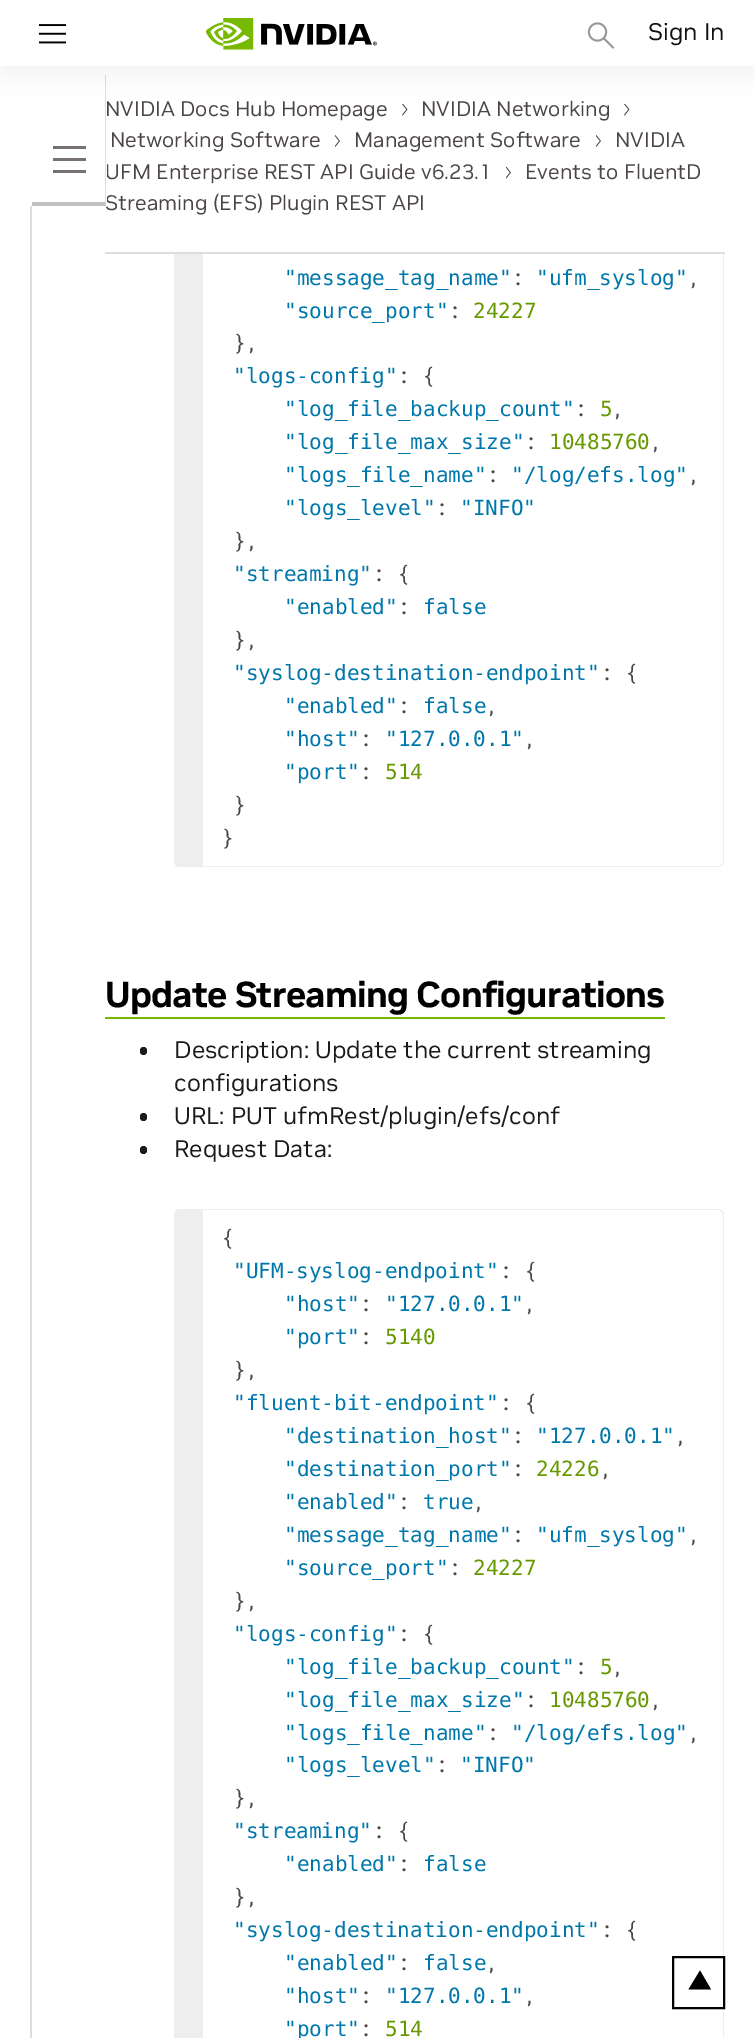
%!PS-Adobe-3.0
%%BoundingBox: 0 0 754 2038
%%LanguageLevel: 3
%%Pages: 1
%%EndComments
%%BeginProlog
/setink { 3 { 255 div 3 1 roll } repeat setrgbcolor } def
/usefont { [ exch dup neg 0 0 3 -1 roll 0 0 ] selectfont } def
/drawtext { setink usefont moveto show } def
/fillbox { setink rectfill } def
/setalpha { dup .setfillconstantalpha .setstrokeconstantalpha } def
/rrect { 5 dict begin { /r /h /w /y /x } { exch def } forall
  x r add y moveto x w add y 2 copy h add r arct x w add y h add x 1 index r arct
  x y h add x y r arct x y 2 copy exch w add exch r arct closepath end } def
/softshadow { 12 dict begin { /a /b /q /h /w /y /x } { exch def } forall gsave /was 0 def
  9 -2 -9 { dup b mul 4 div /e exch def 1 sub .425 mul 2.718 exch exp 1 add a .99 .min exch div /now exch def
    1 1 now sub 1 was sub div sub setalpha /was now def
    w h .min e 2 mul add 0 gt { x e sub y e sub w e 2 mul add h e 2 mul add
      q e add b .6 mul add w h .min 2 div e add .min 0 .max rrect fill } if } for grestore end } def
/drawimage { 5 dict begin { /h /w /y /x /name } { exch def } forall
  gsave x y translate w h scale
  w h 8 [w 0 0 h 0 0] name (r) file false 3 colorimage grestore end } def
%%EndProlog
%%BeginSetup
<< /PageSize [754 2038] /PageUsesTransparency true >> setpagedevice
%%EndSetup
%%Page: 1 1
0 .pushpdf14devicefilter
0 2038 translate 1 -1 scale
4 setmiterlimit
0 0 754 2038 255 255 255 fillbox
238 238 238 setink
180 -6 moveto 203 -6 lineto 203 867 lineto 180 867 lineto 176.5 867 174 864.5 174 861 curveto 174 0 lineto 174 -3.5 176.5 -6 180 -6 curveto closepath fill
180 -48 moveto 202 -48 lineto 202 867 lineto 180 867 lineto 177 867 174 864 174 861 curveto 174 -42 lineto 174 -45 177 -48 180 -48 curveto closepath 180 -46 moveto 202 -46 lineto 202 866 lineto 180 866 lineto 178 866 176 863 176 861 curveto 176 -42 lineto 176 -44 178 -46 180 -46 curveto closepath eofill
202 -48 moveto 718 -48 lineto 722 -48 724 -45 724 -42 curveto 724 861 lineto 724 864 722 867 718 867 curveto 202 867 lineto closepath 202 -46 moveto 718 -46 lineto 721 -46 723 -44 723 -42 curveto 723 861 lineto 723 863 721 866 718 866 curveto 202 866 lineto closepath eofill
174 66 550 186 255 255 255 fillbox
(Streaming \(EFS\) Plugin REST API) 105 210 /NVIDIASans-Regular 21 75 69 69 drawtext
221 221 221 setink
106 75 moveto 106 206 lineto 105 202 lineto 105 75 lineto closepath fill
(assets/img4.rgb) 402 104 6 12 drawimage
(assets/img4.rgb) 624 104 6 12 drawimage
0 0 0 setink
0 8 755 66 0 15 0.05 softshadow
0 0 754 66 255 255 255 fillbox
(assets/img1.rgb) 39 24 27 20 drawimage
(assets/img2.rgb) 206 18 171 32 drawimage
(assets/img3.rgb) 587 22 28 27 drawimage
(Sign In) 648 40 /NVIDIASans-Regular 24 17 17 17 drawtext
(UFM Enterprise REST API Guide v6.23.1) 105 179 /NVIDIASans-Regular 21 75 69 69 drawtext
106 164 1 38 255 255 255 fillbox
192 192 192 setink
106 206 moveto 32 206 lineto 32 202 lineto 105 202 lineto closepath fill
53 146 33 3 120 113 113 fillbox
53 158 33 3 120 113 113 fillbox
53 170 33 3 120 113 113 fillbox
30 206 2 1832 221 221 221 fillbox
(NVIDIA Docs Hub Homepage) 105 116 /NVIDIASans-Regular 21 75 69 69 drawtext
(NVIDIA Networking) 421 116 /NVIDIASans-Regular 21 75 69 69 drawtext
(Networking Software) 110 147 /NVIDIASans-Regular 21 75 69 69 drawtext
(assets/img5.rgb) 335 135 5 12 drawimage
(Management Software) 354 147 /NVIDIASans-Regular 21 75 69 69 drawtext
(assets/img5.rgb) 596 135 5 12 drawimage
(NVIDIA) 615 147 /NVIDIASans-Regular 21 75 69 69 drawtext
(assets/img6.rgb) 506 167 5 12 drawimage
(Events to FluentD) 525 179 /NVIDIASans-Regular 21 75 69 69 drawtext
105 252 620 2 221 221 221 fillbox
("message_tag_name") 284 285 /DejaVuSansMono-Regular 21 0 119 170 drawtext
(:) 511 285 /RobotoMono-Regular 21 75 69 69 drawtext
("ufm_syslog") 536 285 /DejaVuSansMono-Regular 21 0 119 170 drawtext
(,) 688 285 /RobotoMono-Regular 21 75 69 69 drawtext
("source_port") 284 318 /DejaVuSansMono-Regular 21 0 119 170 drawtext
(:) 448 318 /RobotoMono-Regular 21 75 69 69 drawtext
(24227) 473 318 /DejaVuSansMono-Regular 21 102 153 0 drawtext
(},) 233 350 /RobotoMono-Regular 21 75 69 69 drawtext
("logs-config") 233 383 /DejaVuSansMono-Regular 21 0 119 170 drawtext
(: {) 397 383 /RobotoMono-Regular 21 75 69 69 drawtext
("log_file_backup_count") 284 416 /DejaVuSansMono-Regular 21 0 119 170 drawtext
(:) 574 416 /RobotoMono-Regular 21 75 69 69 drawtext
(5) 600 416 /DejaVuSansMono-Regular 21 102 153 0 drawtext
(,) 612 416 /RobotoMono-Regular 21 75 69 69 drawtext
("log_file_max_size") 284 449 /DejaVuSansMono-Regular 21 0 119 170 drawtext
(:) 524 449 /RobotoMono-Regular 21 75 69 69 drawtext
(10485760) 549 449 /DejaVuSansMono-Regular 21 102 153 0 drawtext
(,) 650 449 /RobotoMono-Regular 21 75 69 69 drawtext
("logs_file_name") 284 482 /DejaVuSansMono-Regular 21 0 119 170 drawtext
(:) 486 482 /RobotoMono-Regular 21 75 69 69 drawtext
("/log/efs.log") 511 482 /DejaVuSansMono-Regular 21 0 119 170 drawtext
(,) 688 482 /RobotoMono-Regular 21 75 69 69 drawtext
("logs_level") 284 515 /DejaVuSansMono-Regular 21 0 119 170 drawtext
(:) 435 515 /RobotoMono-Regular 21 75 69 69 drawtext
("INFO") 460 515 /DejaVuSansMono-Regular 21 0 119 170 drawtext
(},) 233 548 /RobotoMono-Regular 21 75 69 69 drawtext
("streaming") 233 581 /DejaVuSansMono-Regular 21 0 119 170 drawtext
(: {) 372 581 /RobotoMono-Regular 21 75 69 69 drawtext
("enabled") 284 614 /DejaVuSansMono-Regular 21 0 119 170 drawtext
(:) 397 614 /RobotoMono-Regular 21 75 69 69 drawtext
(false) 423 614 /DejaVuSansMono-Regular 21 0 119 170 drawtext
(},) 233 647 /RobotoMono-Regular 21 75 69 69 drawtext
("syslog-destination-endpoint") 233 680 /DejaVuSansMono-Regular 21 0 119 170 drawtext
(: {) 600 680 /RobotoMono-Regular 21 75 69 69 drawtext
("enabled") 284 713 /DejaVuSansMono-Regular 21 0 119 170 drawtext
(:) 397 713 /RobotoMono-Regular 21 75 69 69 drawtext
(false) 423 713 /DejaVuSansMono-Regular 21 0 119 170 drawtext
(,) 486 713 /RobotoMono-Regular 21 75 69 69 drawtext
("host") 284 746 /DejaVuSansMono-Regular 21 0 119 170 drawtext
(:) 359 746 /RobotoMono-Regular 21 75 69 69 drawtext
("127.0.0.1") 385 746 /DejaVuSansMono-Regular 21 0 119 170 drawtext
(,) 524 746 /RobotoMono-Regular 21 75 69 69 drawtext
("port") 284 779 /DejaVuSansMono-Regular 21 0 119 170 drawtext
(:) 359 779 /RobotoMono-Regular 21 75 69 69 drawtext
(514) 385 779 /DejaVuSansMono-Regular 21 102 153 0 drawtext
(}) 233 812 /RobotoMono-Regular 21 75 69 69 drawtext
(}) 221 845 /RobotoMono-Regular 21 75 69 69 drawtext
/NVIDIASans-Bold 36 usefont
0 0 0 setink
105 1007 moveto -0.75 0 (Update Streaming Configurations) ashow
105 1017 560 2 116 185 0 fillbox
26 26 26 setink
140 1047 7 8 3.5 rrect fill
(Description: Update the current streaming) 174 1058 /NVIDIASans-Regular 24 26 26 26 drawtext
(configurations) 174 1091 /NVIDIASans-Regular 24 26 26 26 drawtext
140 1113 7 8 3.5 rrect fill
(URL: PUT ufmRest/plugin/efs/conf) 174 1124 /NVIDIASans-Regular 24 26 26 26 drawtext
140 1146 7 8 3.5 rrect fill
(Request Data:) 174 1157 /NVIDIASans-Regular 24 26 26 26 drawtext
238 238 238 setink
180 1209 moveto 203 1209 lineto 203 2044 lineto 180 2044 lineto 176.5 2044 174 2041.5 174 2038 curveto 174 1215 lineto 174 1211.5 176.5 1209 180 1209 curveto closepath fill
180 1209 moveto 202 1209 lineto 202 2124 lineto 180 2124 lineto 177 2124 174 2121 174 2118 curveto 174 1215 lineto 174 1212 177 1209 180 1209 curveto closepath 180 1210 moveto 202 1210 lineto 202 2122 lineto 180 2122 lineto 178 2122 176 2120 176 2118 curveto 176 1215 lineto 176 1213 178 1210 180 1210 curveto closepath eofill
202 1209 moveto 718 1209 lineto 722 1209 724 1212 724 1215 curveto 724 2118 lineto 724 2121 722 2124 718 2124 curveto 202 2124 lineto closepath 202 1210 moveto 718 1210 lineto 721 1210 723 1213 723 1215 curveto 723 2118 lineto 723 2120 721 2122 718 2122 curveto 202 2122 lineto closepath eofill
({) 221 1245 /RobotoMono-Regular 21 75 69 69 drawtext
("UFM-syslog-endpoint") 233 1278 /DejaVuSansMono-Regular 21 0 119 170 drawtext
(: {) 499 1278 /RobotoMono-Regular 21 75 69 69 drawtext
("host") 284 1311 /DejaVuSansMono-Regular 21 0 119 170 drawtext
(:) 359 1311 /RobotoMono-Regular 21 75 69 69 drawtext
("127.0.0.1") 385 1311 /DejaVuSansMono-Regular 21 0 119 170 drawtext
(,) 524 1311 /RobotoMono-Regular 21 75 69 69 drawtext
("port") 284 1344 /DejaVuSansMono-Regular 21 0 119 170 drawtext
(:) 359 1344 /RobotoMono-Regular 21 75 69 69 drawtext
(5140) 385 1344 /DejaVuSansMono-Regular 21 102 153 0 drawtext
(},) 233 1377 /RobotoMono-Regular 21 75 69 69 drawtext
("fluent-bit-endpoint") 233 1410 /DejaVuSansMono-Regular 21 0 119 170 drawtext
(: {) 499 1410 /RobotoMono-Regular 21 75 69 69 drawtext
("destination_host") 284 1443 /DejaVuSansMono-Regular 21 0 119 170 drawtext
(:) 511 1443 /RobotoMono-Regular 21 75 69 69 drawtext
("127.0.0.1") 536 1443 /DejaVuSansMono-Regular 21 0 119 170 drawtext
(,) 675 1443 /RobotoMono-Regular 21 75 69 69 drawtext
("destination_port") 284 1476 /DejaVuSansMono-Regular 21 0 119 170 drawtext
(:) 511 1476 /RobotoMono-Regular 21 75 69 69 drawtext
(24226) 536 1476 /DejaVuSansMono-Regular 21 102 153 0 drawtext
(,) 600 1476 /RobotoMono-Regular 21 75 69 69 drawtext
("enabled") 284 1509 /DejaVuSansMono-Regular 21 0 119 170 drawtext
(:) 397 1509 /RobotoMono-Regular 21 75 69 69 drawtext
(true) 423 1509 /DejaVuSansMono-Regular 21 0 119 170 drawtext
(,) 473 1509 /RobotoMono-Regular 21 75 69 69 drawtext
("message_tag_name") 284 1542 /DejaVuSansMono-Regular 21 0 119 170 drawtext
(:) 511 1542 /RobotoMono-Regular 21 75 69 69 drawtext
("ufm_syslog") 536 1542 /DejaVuSansMono-Regular 21 0 119 170 drawtext
(,) 688 1542 /RobotoMono-Regular 21 75 69 69 drawtext
("source_port") 284 1575 /DejaVuSansMono-Regular 21 0 119 170 drawtext
(:) 448 1575 /RobotoMono-Regular 21 75 69 69 drawtext
(24227) 473 1575 /DejaVuSansMono-Regular 21 102 153 0 drawtext
(},) 233 1608 /RobotoMono-Regular 21 75 69 69 drawtext
("logs-config") 233 1641 /DejaVuSansMono-Regular 21 0 119 170 drawtext
(: {) 397 1641 /RobotoMono-Regular 21 75 69 69 drawtext
("log_file_backup_count") 284 1674 /DejaVuSansMono-Regular 21 0 119 170 drawtext
(:) 574 1674 /RobotoMono-Regular 21 75 69 69 drawtext
(5) 600 1674 /DejaVuSansMono-Regular 21 102 153 0 drawtext
(,) 612 1674 /RobotoMono-Regular 21 75 69 69 drawtext
("log_file_max_size") 284 1707 /DejaVuSansMono-Regular 21 0 119 170 drawtext
(:) 524 1707 /RobotoMono-Regular 21 75 69 69 drawtext
(10485760) 549 1707 /DejaVuSansMono-Regular 21 102 153 0 drawtext
(,) 650 1707 /RobotoMono-Regular 21 75 69 69 drawtext
("logs_file_name") 284 1740 /DejaVuSansMono-Regular 21 0 119 170 drawtext
(:) 486 1740 /RobotoMono-Regular 21 75 69 69 drawtext
("/log/efs.log") 511 1740 /DejaVuSansMono-Regular 21 0 119 170 drawtext
(,) 688 1740 /RobotoMono-Regular 21 75 69 69 drawtext
("logs_level") 284 1772 /DejaVuSansMono-Regular 21 0 119 170 drawtext
(:) 435 1772 /RobotoMono-Regular 21 75 69 69 drawtext
("INFO") 460 1772 /DejaVuSansMono-Regular 21 0 119 170 drawtext
(},) 233 1805 /RobotoMono-Regular 21 75 69 69 drawtext
("streaming") 233 1838 /DejaVuSansMono-Regular 21 0 119 170 drawtext
(: {) 372 1838 /RobotoMono-Regular 21 75 69 69 drawtext
("enabled") 284 1871 /DejaVuSansMono-Regular 21 0 119 170 drawtext
(:) 397 1871 /RobotoMono-Regular 21 75 69 69 drawtext
(false) 423 1871 /DejaVuSansMono-Regular 21 0 119 170 drawtext
(},) 233 1904 /RobotoMono-Regular 21 75 69 69 drawtext
("syslog-destination-endpoint") 233 1937 /DejaVuSansMono-Regular 21 0 119 170 drawtext
(: {) 600 1937 /RobotoMono-Regular 21 75 69 69 drawtext
("enabled") 284 1970 /DejaVuSansMono-Regular 21 0 119 170 drawtext
(:) 397 1970 /RobotoMono-Regular 21 75 69 69 drawtext
(false) 423 1970 /DejaVuSansMono-Regular 21 0 119 170 drawtext
(,) 486 1970 /RobotoMono-Regular 21 75 69 69 drawtext
("host") 284 2003 /DejaVuSansMono-Regular 21 0 119 170 drawtext
(:) 359 2003 /RobotoMono-Regular 21 75 69 69 drawtext
("127.0.0.1") 385 2003 /DejaVuSansMono-Regular 21 0 119 170 drawtext
(,) 524 2003 /RobotoMono-Regular 21 75 69 69 drawtext
("port") 284 2036 /DejaVuSansMono-Regular 21 0 119 170 drawtext
(:) 359 2036 /RobotoMono-Regular 21 75 69 69 drawtext
(514) 385 2036 /DejaVuSansMono-Regular 21 102 153 0 drawtext
0 0 0 setink
2 setlinewidth
673 1957 51 51 rectstroke
700 1970.5 moveto 688.5 1989.5 lineto 711 1989.5 lineto closepath fill
.poppdf14devicefilter showpage
%%EOF
